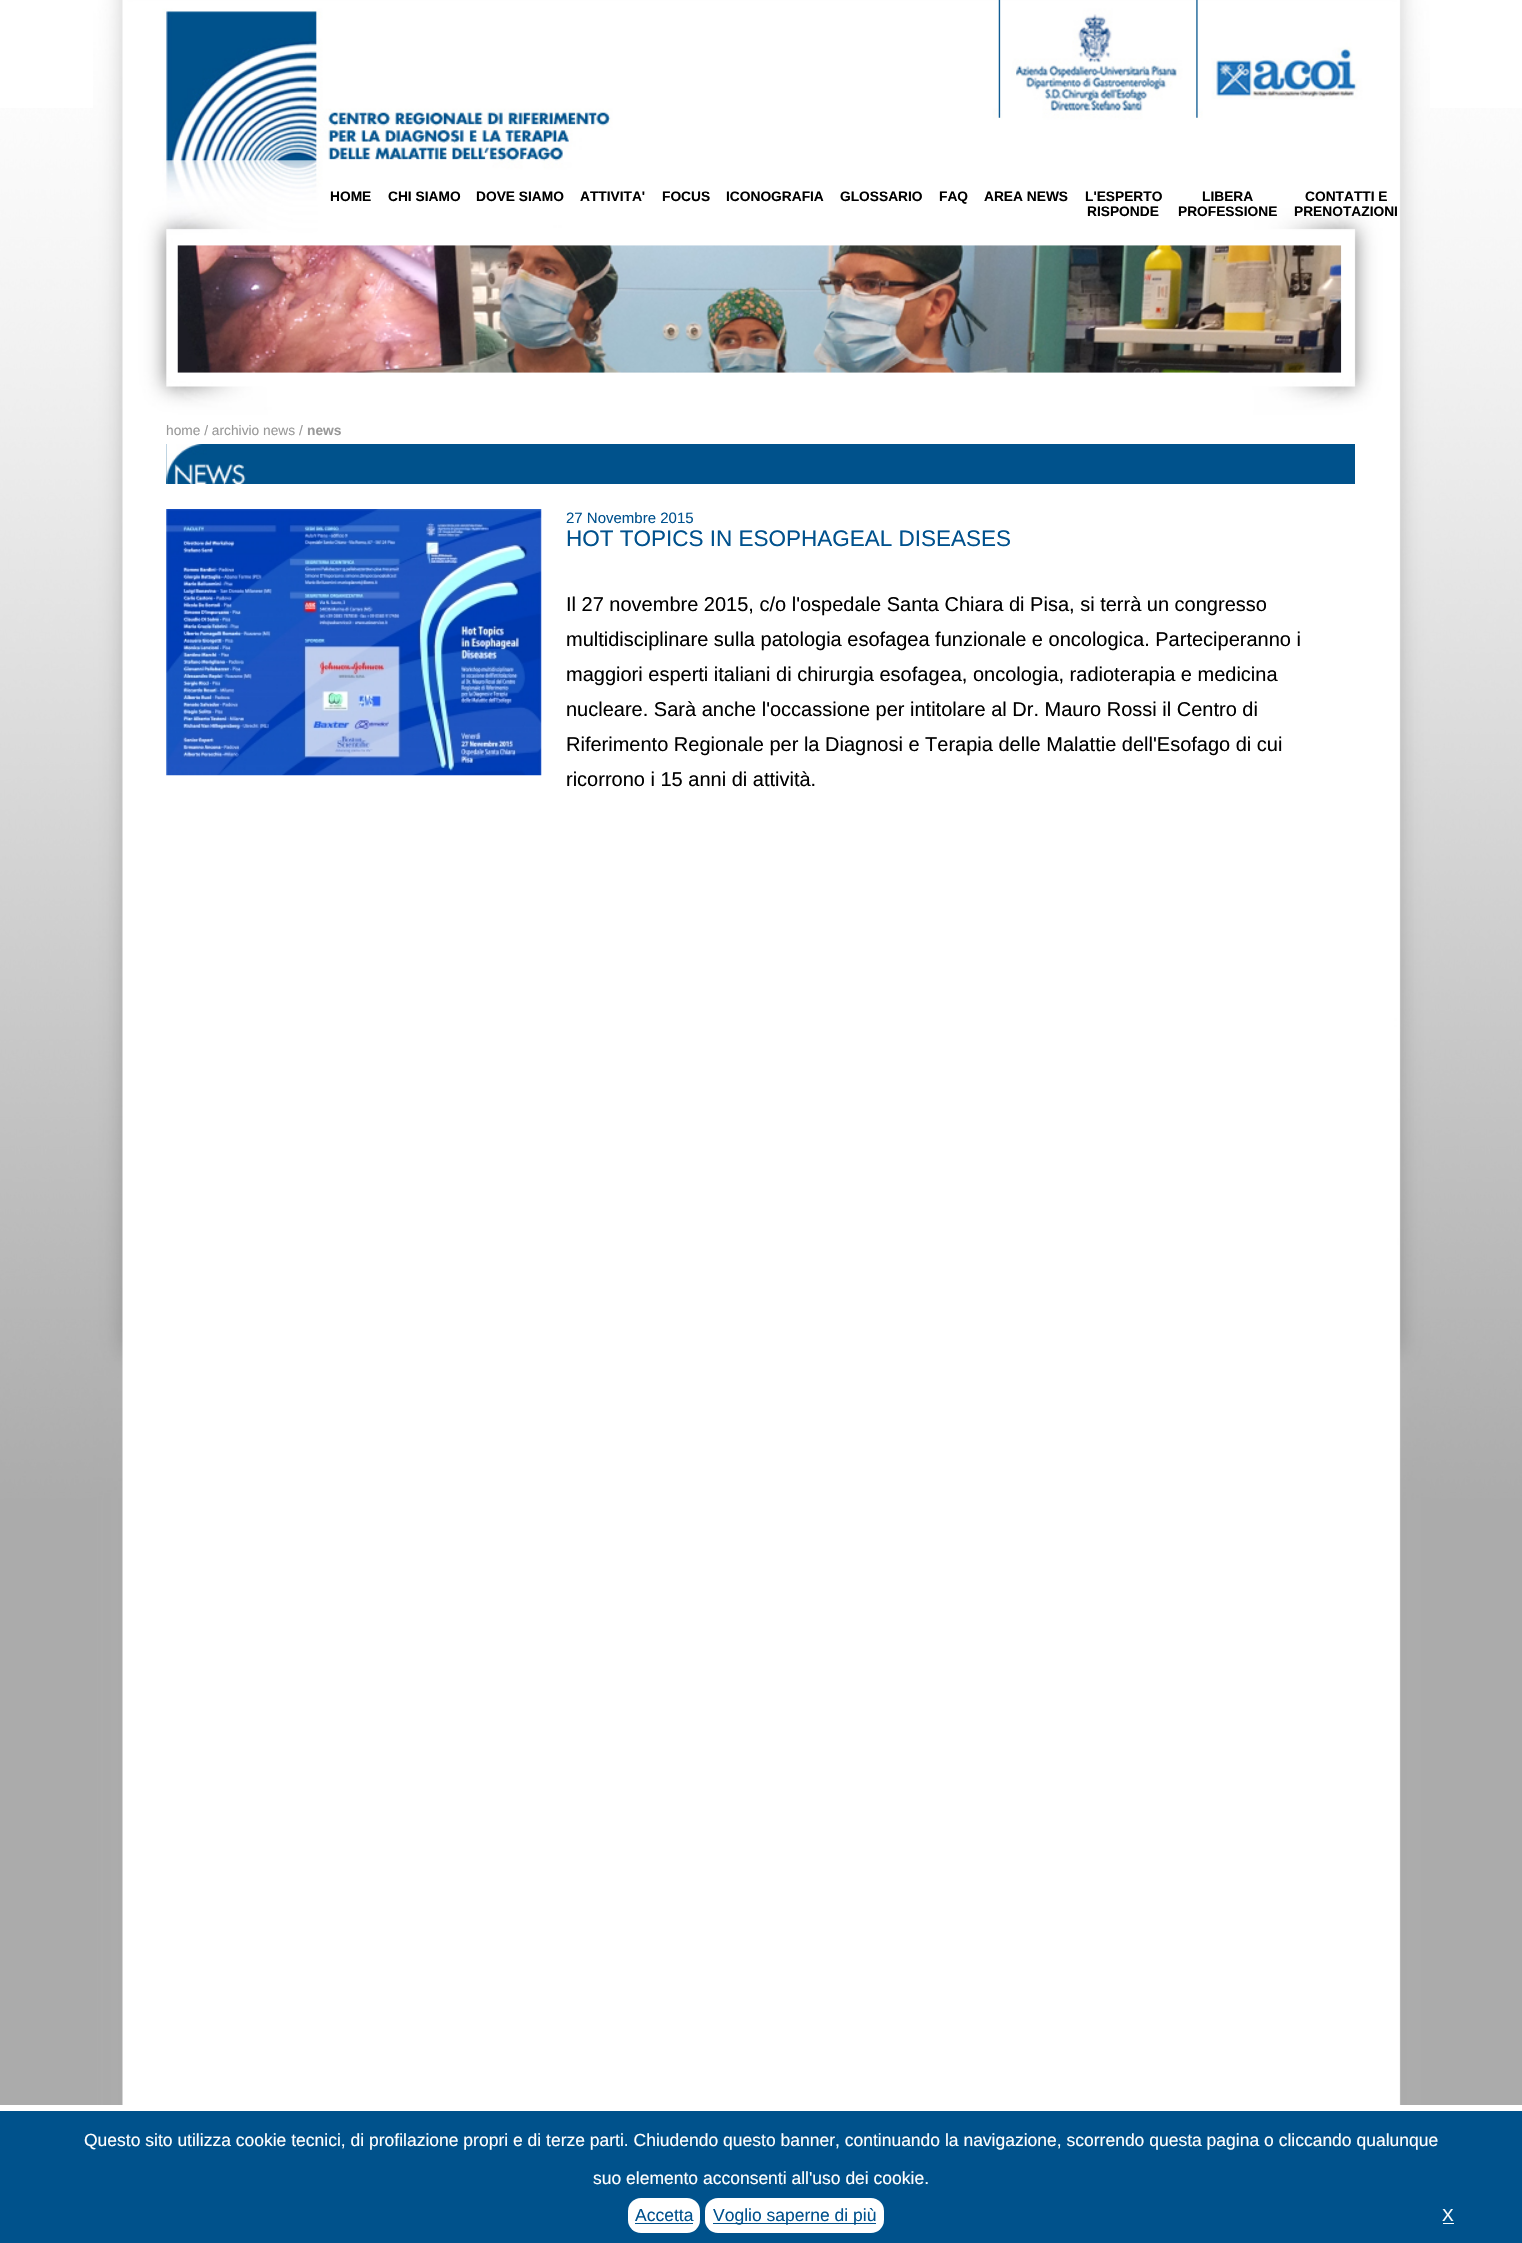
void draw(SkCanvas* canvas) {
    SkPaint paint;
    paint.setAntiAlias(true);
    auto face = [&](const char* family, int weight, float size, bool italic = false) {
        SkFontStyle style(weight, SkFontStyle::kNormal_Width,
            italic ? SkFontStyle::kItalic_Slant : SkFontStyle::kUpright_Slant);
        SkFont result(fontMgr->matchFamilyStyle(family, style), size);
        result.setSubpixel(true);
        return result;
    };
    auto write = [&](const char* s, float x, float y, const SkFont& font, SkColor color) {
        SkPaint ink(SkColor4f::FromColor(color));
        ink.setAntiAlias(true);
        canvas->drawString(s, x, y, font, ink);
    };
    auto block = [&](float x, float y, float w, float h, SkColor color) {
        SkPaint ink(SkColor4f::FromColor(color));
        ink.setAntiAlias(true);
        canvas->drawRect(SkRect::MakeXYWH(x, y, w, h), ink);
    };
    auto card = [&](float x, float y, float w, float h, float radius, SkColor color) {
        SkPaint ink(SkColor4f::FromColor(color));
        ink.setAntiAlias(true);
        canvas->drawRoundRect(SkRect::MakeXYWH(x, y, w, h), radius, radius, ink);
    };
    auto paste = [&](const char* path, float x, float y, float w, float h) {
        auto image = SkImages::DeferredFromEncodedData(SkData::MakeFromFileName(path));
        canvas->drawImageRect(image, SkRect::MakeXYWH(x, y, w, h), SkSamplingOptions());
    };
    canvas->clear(SK_ColorWHITE);
    paste("pic1.png", 0, 108, 1522, 1997);
    paste("pic2.png", 93, 0, 1337, 2105);
    auto kFont1 = face("Liberation Sans", 700, 13.75f);
    write("HOME", 330, 201, kFont1, SK_ColorBLACK);
    write("CHI SIAMO", 388, 201, kFont1, SK_ColorBLACK);
    write("DOVE SIAMO", 476, 201, kFont1, SK_ColorBLACK);
    write("ATTIVITA'", 580, 201, kFont1, SK_ColorBLACK);
    write("FOCUS", 662, 201, kFont1, SK_ColorBLACK);
    write("ICONOGRAFIA", 726, 201, kFont1, SK_ColorBLACK);
    write("GLOSSARIO", 840, 201, kFont1, SK_ColorBLACK);
    write("FAQ", 939, 201, kFont1, SK_ColorBLACK);
    write("AREA NEWS", 984, 201, kFont1, SK_ColorBLACK);
    write("L'ESPERTO", 1085, 201, kFont1, SK_ColorBLACK);
    write("RISPONDE", 1087, 216, kFont1, SK_ColorBLACK);
    write("LIBERA", 1202, 201, kFont1, SK_ColorBLACK);
    write("PROFESSIONE", 1178, 216, kFont1, SK_ColorBLACK);
    write("CONTATTI E", 1305, 201, kFont1, SK_ColorBLACK);
    write("PRENOTAZIONI", 1294, 216, kFont1, SK_ColorBLACK);
    paste("pic3.png", 177, 245, 1165, 128);
    auto kFont2 = face("Liberation Sans", 400, 13.75f);
    write("home / archivio news /", 166, 435, kFont2, SkColorSetRGB(153, 153, 153));
    write("news", 307, 435, kFont1, SkColorSetRGB(153, 153, 153));
    block(166, 444, 1189, 40, SkColorSetRGB(0, 82, 140));
    paste("pic4.png", 166, 444, 80, 40);
    paste("pic5.png", 166, 509, 376, 267);
    auto kFont3 = face("Liberation Sans", 400, 15);
    write("27 Novembre 2015", 566, 523, kFont3, SkColorSetRGB(0, 81, 141));
    auto kFont4 = face("Liberation Sans", 400, 22.5f);
    write("HOT TOPICS IN ESOPHAGEAL DISEASES", 566, 546, kFont4, SkColorSetRGB(0, 81, 141));
    auto kFont5 = face("Liberation Sans", 400, 20);
    write("Il 27 novembre 2015, c/o l'ospedale Santa Chiara di Pisa, si terrà un congresso", 566, 611, kFont5, SK_ColorBLACK);
    write("multidisciplinare sulla patologia esofagea funzionale e oncologica. Parteciperanno i", 566, 646, kFont5, SK_ColorBLACK);
    write("maggiori esperti italiani di chirurgia esofagea, oncologia, radioterapia e medicina", 566, 681, kFont5, SK_ColorBLACK);
    write("nucleare. Sarà anche l'occassione per intitolare al Dr. Mauro Rossi il Centro di", 566, 716, kFont5, SK_ColorBLACK);
    write("Riferimento Regionale per la Diagnosi e Terapia delle Malattie dell'Esofago di cui", 566, 751, kFont5, SK_ColorBLACK);
    write("ricorrono i 15 anni di attività.", 566, 786, kFont5, SK_ColorBLACK);
    block(0, 2111, 1522, 132, SkColorSetRGB(0, 82, 140));
    auto kFont6 = face("Liberation Sans", 400, 17.5f);
    write("Questo sito utilizza cookie tecnici, di profilazione propri e di terze parti. Chiudendo questo banner, continuando la navigazione, scorrendo questa pagina o cliccando qualunque", 84, 2146, kFont6, SK_ColorWHITE);
    write("suo elemento acconsenti all'uso dei cookie.", 593, 2184, kFont6, SK_ColorWHITE);
    card(628, 2198, 72, 35, 13, SK_ColorWHITE);
    write("Accetta", 635, 2221, kFont6, SkColorSetRGB(0, 81, 141));
    block(635, 2223, 58, 1, SkColorSetRGB(0, 82, 140));
    card(705, 2198, 179, 35, 13, SK_ColorWHITE);
    block(713, 2223, 163, 1, SkColorSetRGB(0, 82, 140));
    write("Voglio saperne di più", 713, 2221, kFont6, SkColorSetRGB(0, 81, 141));
    write("X", 1442, 2221, kFont6, SK_ColorWHITE);
    block(1443, 2223, 11, 1, SK_ColorWHITE);
}
